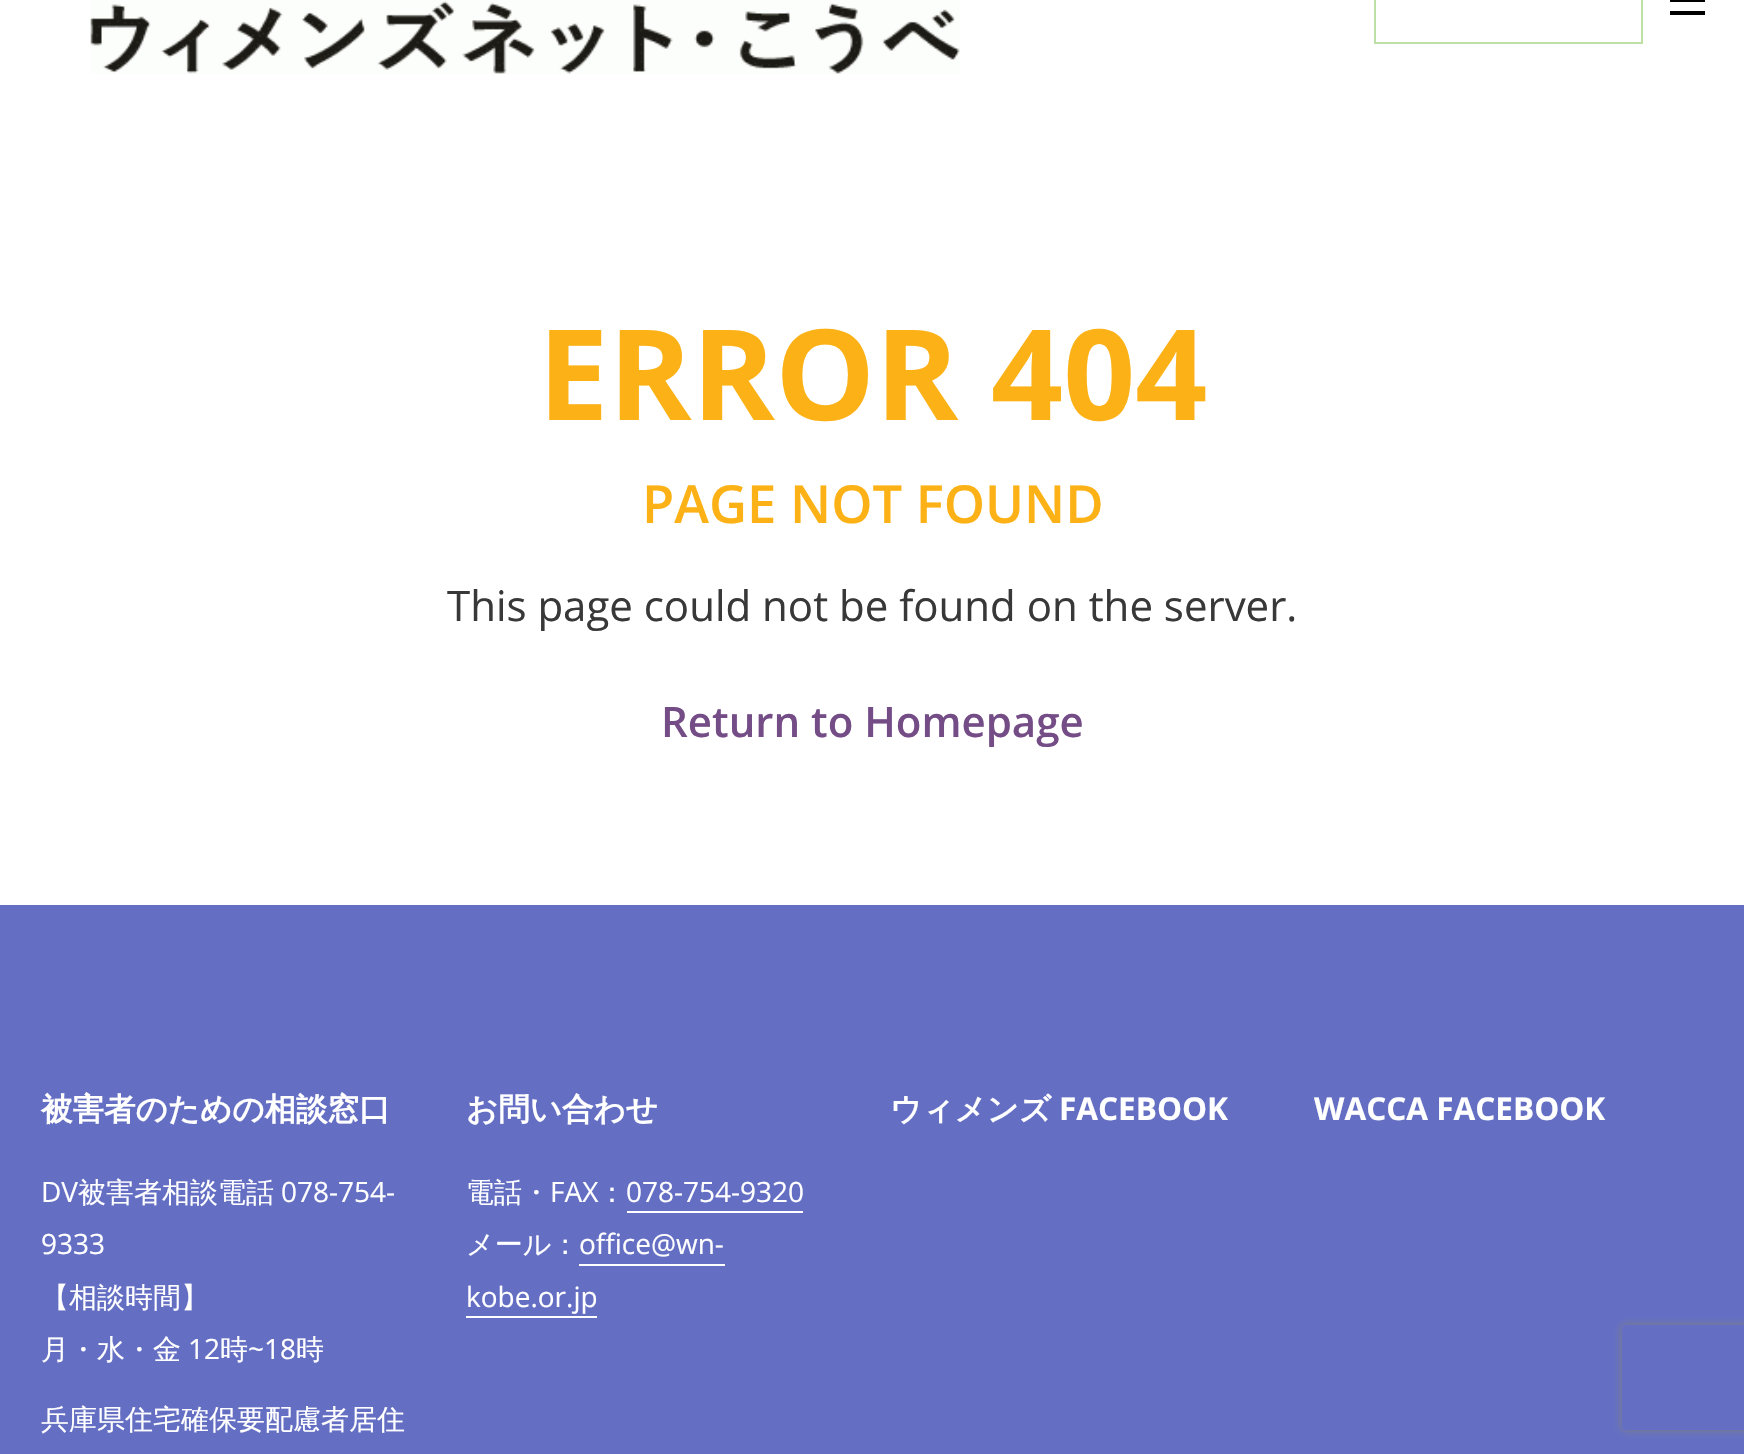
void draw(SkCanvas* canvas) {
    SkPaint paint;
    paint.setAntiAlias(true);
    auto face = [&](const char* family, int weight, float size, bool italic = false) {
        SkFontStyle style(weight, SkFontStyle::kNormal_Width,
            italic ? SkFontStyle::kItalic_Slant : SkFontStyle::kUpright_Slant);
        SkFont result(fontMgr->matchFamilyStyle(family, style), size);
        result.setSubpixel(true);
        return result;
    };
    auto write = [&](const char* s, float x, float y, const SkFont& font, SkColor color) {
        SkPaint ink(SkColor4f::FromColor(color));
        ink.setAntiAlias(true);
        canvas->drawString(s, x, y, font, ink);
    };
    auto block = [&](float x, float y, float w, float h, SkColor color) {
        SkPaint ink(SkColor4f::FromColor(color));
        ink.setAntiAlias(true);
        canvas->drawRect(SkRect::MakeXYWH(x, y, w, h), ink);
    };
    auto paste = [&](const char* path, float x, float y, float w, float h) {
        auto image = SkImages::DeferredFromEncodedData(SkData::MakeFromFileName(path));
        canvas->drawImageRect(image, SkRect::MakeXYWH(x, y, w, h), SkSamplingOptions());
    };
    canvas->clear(SK_ColorWHITE);
    paste("pic1.png", 90, 0, 870, 74);
    paint.setStyle(SkPaint::kStroke_Style);
    paint.setStrokeWidth(2);
    paint.setColor(SkColorSetRGB(189, 224, 167));
    canvas->drawRect(SkRect::MakeXYWH(1375, -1, 267, 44), paint);
    block(1670, 0, 35, 2, SK_ColorBLACK);
    block(1670, 11, 35, 4, SK_ColorBLACK);
    auto kFont1 = face("Open Sans", 700, 126);
    write("ERROR 404", 538, 420, kFont1, SkColorSetRGB(252, 178, 22));
    auto kFont2 = face("Open Sans", 600, 52.5f);
    write("PAGE NOT FOUND", 642, 523, kFont2, SkColorSetRGB(252, 178, 22));
    auto kFont3 = face("Open Sans", 400, 42);
    write("This page could not be found on the server.", 447, 621, kFont3, SkColorSetRGB(56, 56, 56));
    auto kFont4 = face("Open Sans", 600, 42);
    write("Return to Homepage", 661, 737, kFont4, SkColorSetRGB(116, 76, 134));
    block(0, 905, 1744, 549, SkColorSetRGB(100, 111, 196));
    auto kFont5 = face("WenQuanYi Zen Hei", 700, 31.5f);
    write("被害者のための相談窓口", 41, 1120, kFont5, SK_ColorWHITE);
    auto kFont6 = face("Open Sans", 400, 28);
    write("DV", 41, 1202, kFont6, SK_ColorWHITE);
    auto kFont7 = face("WenQuanYi Zen Hei", 500, 28);
    write("被害者相談電話", 78, 1202, kFont7, SK_ColorWHITE);
    write("078-754-", 281, 1202, kFont6, SK_ColorWHITE);
    write("9333", 41, 1254, kFont6, SK_ColorWHITE);
    write("【相談時間】", 41, 1307, kFont7, SK_ColorWHITE);
    write("月・水・金", 41, 1359, kFont7, SK_ColorWHITE);
    write("12", 188, 1359, kFont6, SK_ColorWHITE);
    write("時", 220, 1359, kFont7, SK_ColorWHITE);
    write("~18", 248, 1359, kFont6, SK_ColorWHITE);
    write("時", 296, 1359, kFont7, SK_ColorWHITE);
    write("兵庫県住宅確保要配慮者居住", 41, 1429, kFont7, SK_ColorWHITE);
    write("お問い合わせ", 466, 1120, kFont5, SK_ColorWHITE);
    write("電話・", 466, 1202, kFont7, SK_ColorWHITE);
    write("FAX", 550, 1202, kFont6, SK_ColorWHITE);
    write("：", 598, 1202, kFont7, SK_ColorWHITE);
    write("078-754-9320", 626, 1202, kFont6, SK_ColorWHITE);
    block(627, 1211, 176, 2, SK_ColorWHITE);
    write("メール：", 466, 1254, kFont7, SK_ColorWHITE);
    write("office@wn-", 579, 1254, kFont6, SK_ColorWHITE);
    block(579, 1264, 146, 2, SK_ColorWHITE);
    write("kobe.or.jp", 466, 1307, kFont6, SK_ColorWHITE);
    block(466, 1316, 131, 2, SK_ColorWHITE);
    write("ウィメンズ", 890, 1120, kFont5, SK_ColorWHITE);
    auto kFont8 = face("Open Sans", 700, 31.5f);
    write("FACEBOOK", 1059, 1120, kFont8, SK_ColorWHITE);
    write("WACCA FACEBOOK", 1314, 1120, kFont8, SK_ColorWHITE);
    canvas->save();
    canvas->clipPath(SkPathBuilder(SkPathFillType::kEvenOdd).moveTo(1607, 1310).lineTo(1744, 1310).lineTo(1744, 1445).lineTo(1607, 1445).close().moveTo(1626, 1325).lineTo(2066, 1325).cubicTo(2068, 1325, 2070, 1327, 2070, 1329).lineTo(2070, 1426).cubicTo(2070, 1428, 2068, 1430, 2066, 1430).lineTo(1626, 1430).cubicTo(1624, 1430, 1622, 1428, 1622, 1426).lineTo(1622, 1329).cubicTo(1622, 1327, 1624, 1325, 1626, 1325).close().detach(), true);
    paint.setStyle(SkPaint::kFill_Style);
    paint.setColor(SkColorSetRGB(128, 128, 128));
    paint.setMaskFilter(SkMaskFilter::MakeBlur(kNormal_SkBlurStyle, 4.5f));
    canvas->drawRoundRect(SkRect::MakeXYWH(1622, 1325, 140, 105), 4, 4, paint);
    paint.setMaskFilter(nullptr);
    canvas->restore();
}
